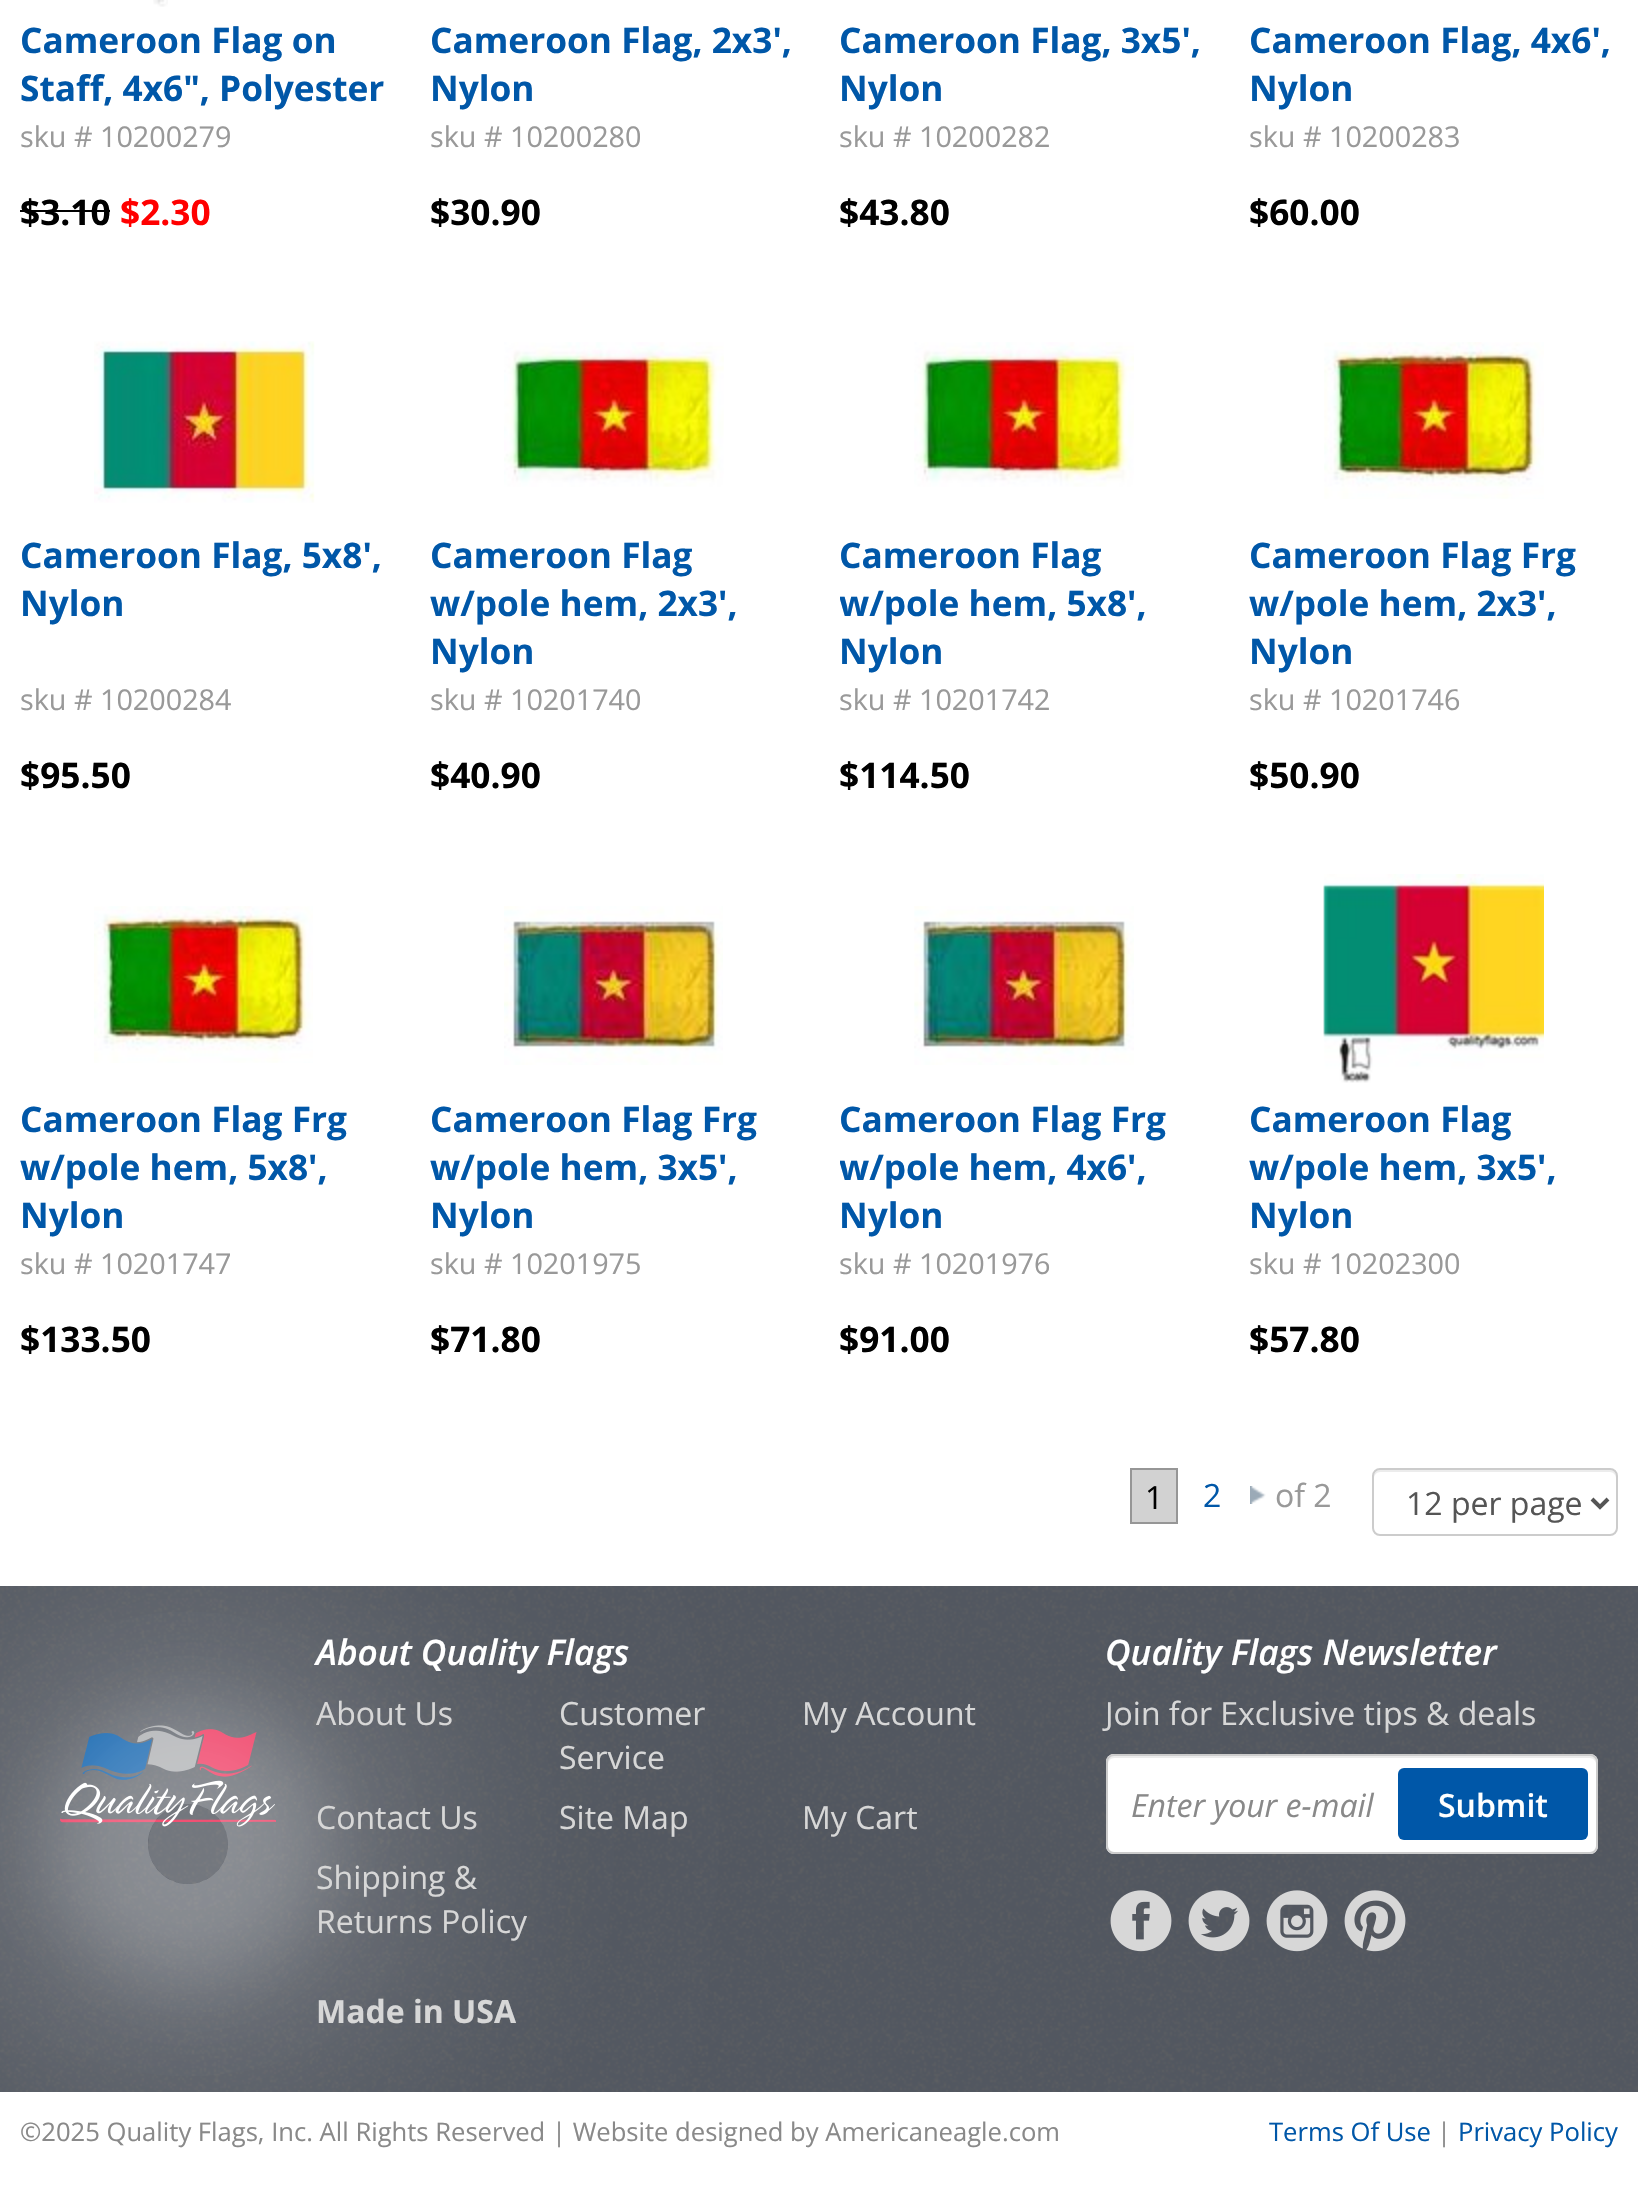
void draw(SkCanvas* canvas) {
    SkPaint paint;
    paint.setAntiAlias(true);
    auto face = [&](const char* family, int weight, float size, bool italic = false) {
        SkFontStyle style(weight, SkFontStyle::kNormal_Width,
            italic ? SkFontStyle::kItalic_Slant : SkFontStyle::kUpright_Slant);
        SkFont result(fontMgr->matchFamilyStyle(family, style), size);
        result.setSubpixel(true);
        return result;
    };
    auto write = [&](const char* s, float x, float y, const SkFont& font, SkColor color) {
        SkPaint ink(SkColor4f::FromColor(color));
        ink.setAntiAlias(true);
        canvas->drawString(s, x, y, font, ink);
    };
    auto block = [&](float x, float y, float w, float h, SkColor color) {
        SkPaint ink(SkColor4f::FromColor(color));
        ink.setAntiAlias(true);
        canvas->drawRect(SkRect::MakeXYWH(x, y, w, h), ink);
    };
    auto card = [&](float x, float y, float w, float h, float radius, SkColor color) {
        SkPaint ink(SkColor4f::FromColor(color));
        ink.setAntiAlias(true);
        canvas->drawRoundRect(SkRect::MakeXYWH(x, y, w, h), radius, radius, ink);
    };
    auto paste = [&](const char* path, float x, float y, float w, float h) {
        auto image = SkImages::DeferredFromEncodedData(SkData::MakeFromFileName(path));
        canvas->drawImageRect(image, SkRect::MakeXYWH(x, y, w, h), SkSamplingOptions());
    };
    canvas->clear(SK_ColorWHITE);
    paste("pic1.png", 153, 0, 15, 7);
    auto kFont1 = face("Open Sans", 700, 35.25f);
    write("Cameroon Flag on", 20, 53, kFont1, SkColorSetRGB(0, 87, 168));
    write("Staff, 4x6\", Polyester", 20, 101, kFont1, SkColorSetRGB(0, 87, 168));
    auto kFont2 = face("Open Sans", 400, 28.75f);
    write("sku # 10200279", 20, 147, kFont2, SkColorSetRGB(153, 153, 153));
    write("$3.10", 20, 225, kFont1, SK_ColorBLACK);
    block(20, 210, 90, 2, SK_ColorBLACK);
    write("$2.30", 120, 225, kFont1, SkColorSetRGB(255, 0, 0));
    write("Cameroon Flag, 2x3',", 430, 53, kFont1, SkColorSetRGB(0, 87, 168));
    write("Nylon", 430, 101, kFont1, SkColorSetRGB(0, 87, 168));
    write("sku # 10200280", 430, 147, kFont2, SkColorSetRGB(153, 153, 153));
    write("$30.90", 430, 225, kFont1, SK_ColorBLACK);
    write("Cameroon Flag, 3x5',", 839, 53, kFont1, SkColorSetRGB(0, 87, 168));
    write("Nylon", 839, 101, kFont1, SkColorSetRGB(0, 87, 168));
    write("sku # 10200282", 839, 147, kFont2, SkColorSetRGB(153, 153, 153));
    write("$43.80", 839, 225, kFont1, SK_ColorBLACK);
    write("Cameroon Flag, 4x6',", 1249, 53, kFont1, SkColorSetRGB(0, 87, 168));
    write("Nylon", 1249, 101, kFont1, SkColorSetRGB(0, 87, 168));
    write("sku # 10200283", 1249, 147, kFont2, SkColorSetRGB(153, 153, 153));
    write("$60.00", 1249, 225, kFont1, SK_ColorBLACK);
    paste("pic2.png", 94, 341, 221, 162);
    write("Cameroon Flag, 5x8',", 20, 568, kFont1, SkColorSetRGB(0, 87, 168));
    write("Nylon", 20, 616, kFont1, SkColorSetRGB(0, 87, 168));
    write("sku # 10200284", 20, 710, kFont2, SkColorSetRGB(153, 153, 153));
    write("$95.50", 20, 788, kFont1, SK_ColorBLACK);
    paste("pic3.png", 504, 342, 220, 145);
    write("Cameroon Flag", 430, 568, kFont1, SkColorSetRGB(0, 87, 168));
    write("w/pole hem, 2x3',", 430, 616, kFont1, SkColorSetRGB(0, 87, 168));
    write("Nylon", 430, 664, kFont1, SkColorSetRGB(0, 87, 168));
    write("sku # 10201740", 430, 710, kFont2, SkColorSetRGB(153, 153, 153));
    write("$40.90", 430, 788, kFont1, SK_ColorBLACK);
    paste("pic4.png", 914, 342, 220, 145);
    write("Cameroon Flag", 839, 568, kFont1, SkColorSetRGB(0, 87, 168));
    canvas->save();
    canvas->clipRect(SkRect::MakeXYWH(840, 310, 368, 524));
    write("w/pole hem, 5x8',", 839, 616, kFont1, SkColorSetRGB(0, 87, 168));
    canvas->restore();
    write("Nylon", 839, 664, kFont1, SkColorSetRGB(0, 87, 168));
    write("sku # 10201742", 839, 710, kFont2, SkColorSetRGB(153, 153, 153));
    write("$114.50", 839, 788, kFont1, SK_ColorBLACK);
    paste("pic5.png", 1324, 342, 220, 157);
    write("Cameroon Flag Frg", 1249, 568, kFont1, SkColorSetRGB(0, 87, 168));
    write("w/pole hem, 2x3',", 1249, 616, kFont1, SkColorSetRGB(0, 87, 168));
    write("Nylon", 1249, 664, kFont1, SkColorSetRGB(0, 87, 168));
    write("sku # 10201746", 1249, 710, kFont2, SkColorSetRGB(153, 153, 153));
    write("$50.90", 1249, 788, kFont1, SK_ColorBLACK);
    paste("pic6.png", 94, 906, 219, 157);
    write("Cameroon Flag Frg", 20, 1132, kFont1, SkColorSetRGB(0, 87, 168));
    write("w/pole hem, 5x8',", 20, 1180, kFont1, SkColorSetRGB(0, 87, 168));
    write("Nylon", 20, 1228, kFont1, SkColorSetRGB(0, 87, 168));
    write("sku # 10201747", 20, 1274, kFont2, SkColorSetRGB(153, 153, 153));
    write("$133.50", 20, 1352, kFont1, SK_ColorBLACK);
    paste("pic7.png", 504, 906, 219, 159);
    write("Cameroon Flag Frg", 430, 1132, kFont1, SkColorSetRGB(0, 87, 168));
    write("w/pole hem, 3x5',", 430, 1180, kFont1, SkColorSetRGB(0, 87, 168));
    write("Nylon", 430, 1228, kFont1, SkColorSetRGB(0, 87, 168));
    write("sku # 10201975", 430, 1274, kFont2, SkColorSetRGB(153, 153, 153));
    write("$71.80", 430, 1352, kFont1, SK_ColorBLACK);
    paste("pic8.png", 914, 906, 220, 159);
    write("Cameroon Flag Frg", 839, 1132, kFont1, SkColorSetRGB(0, 87, 168));
    canvas->save();
    canvas->clipRect(SkRect::MakeXYWH(840, 874, 368, 522));
    write("w/pole hem, 4x6',", 839, 1180, kFont1, SkColorSetRGB(0, 87, 168));
    canvas->restore();
    write("Nylon", 839, 1228, kFont1, SkColorSetRGB(0, 87, 168));
    write("sku # 10201976", 839, 1274, kFont2, SkColorSetRGB(153, 153, 153));
    write("$91.00", 839, 1352, kFont1, SK_ColorBLACK);
    paste("pic9.png", 1323, 874, 221, 209);
    write("Cameroon Flag", 1249, 1132, kFont1, SkColorSetRGB(0, 87, 168));
    write("w/pole hem, 3x5',", 1249, 1180, kFont1, SkColorSetRGB(0, 87, 168));
    write("Nylon", 1249, 1228, kFont1, SkColorSetRGB(0, 87, 168));
    write("sku # 10202300", 1249, 1274, kFont2, SkColorSetRGB(153, 153, 153));
    write("$57.80", 1249, 1352, kFont1, SK_ColorBLACK);
    paint.setColor(SkColorSetRGB(210, 210, 210));
    canvas->drawRect(SkRect::MakeXYWH(1131, 1469, 46, 54), paint);
    paint.setStyle(SkPaint::kStroke_Style);
    paint.setStrokeWidth(2);
    paint.setColor(SkColorSetRGB(150, 150, 150));
    canvas->drawRect(SkRect::MakeXYWH(1131, 1469, 46, 54), paint);
    auto kFont3 = face("Open Sans", 400, 32);
    write("1", 1145, 1509, kFont3, SK_ColorBLACK);
    write("2", 1203, 1507, kFont3, SkColorSetRGB(0, 87, 168));
    paste("pic10.png", 1250, 1486, 16, 18);
    write("of 2", 1275, 1507, kFont3, SkColorSetRGB(153, 153, 153));
    paint.setStyle(SkPaint::kFill_Style);
    paint.setColor(SkColorSetRGB(236, 236, 236));
    canvas->drawPath(SkPathBuilder().moveTo(1380, 1472).lineTo(1610, 1472).cubicTo(1613, 1472, 1616, 1475, 1616, 1478).lineTo(1616, 1476).cubicTo(1616, 1473, 1613, 1470, 1610, 1470).lineTo(1380, 1470).cubicTo(1377, 1470, 1374, 1473, 1374, 1476).lineTo(1374, 1478).cubicTo(1374, 1475, 1377, 1472, 1380, 1472).close().detach(), paint);
    paint.setStyle(SkPaint::kStroke_Style);
    paint.setColor(SkColorSetRGB(204, 204, 204));
    canvas->drawRoundRect(SkRect::MakeXYWH(1373, 1469, 244, 66), 7, 7, paint);
    paint.setStrokeWidth(4);
    paint.setColor(SkColorSetRGB(85, 85, 85));
    canvas->drawPath(SkPathBuilder().moveTo(1592, 1499).lineTo(1600, 1507).lineTo(1608, 1499).detach(), paint);
    write("12 per page", 1406, 1515, kFont3, SkColorSetRGB(85, 85, 85));
    paste("pic11.png", 0, 1586, 1638, 506);
    paste("pic12.png", 60, 1725, 216, 102);
    canvas->save();
    canvas->clipPath(SkPathBuilder(SkPathFillType::kEvenOdd).moveTo(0, 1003).lineTo(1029, 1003).lineTo(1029, 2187).lineTo(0, 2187).close().moveTo(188, 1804).cubicTo(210, 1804, 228, 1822, 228, 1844).cubicTo(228, 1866, 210, 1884, 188, 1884).cubicTo(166, 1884, 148, 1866, 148, 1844).cubicTo(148, 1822, 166, 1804, 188, 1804).close().detach(), true);
    paint.setStyle(SkPaint::kFill_Style);
    paint.setColor(SkColorSetARGB(48, 255, 255, 255));
    paint.setMaskFilter(SkMaskFilter::MakeBlur(kNormal_SkBlurStyle, 200));
    canvas->drawRoundRect(SkRect::MakeXYWH(-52, 1604, 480, 480), 240, 240, paint);
    paint.setMaskFilter(nullptr);
    canvas->restore();
    canvas->save();
    canvas->clipPath(SkPathBuilder(SkPathFillType::kEvenOdd).moveTo(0, 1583).lineTo(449, 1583).lineTo(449, 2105).lineTo(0, 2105).close().moveTo(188, 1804).cubicTo(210, 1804, 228, 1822, 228, 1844).cubicTo(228, 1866, 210, 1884, 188, 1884).cubicTo(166, 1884, 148, 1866, 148, 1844).cubicTo(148, 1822, 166, 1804, 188, 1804).close().detach(), true);
    paint.setMaskFilter(SkMaskFilter::MakeBlur(kNormal_SkBlurStyle, 40));
    canvas->drawRoundRect(SkRect::MakeXYWH(48, 1704, 280, 280), 140, 140, paint);
    paint.setMaskFilter(nullptr);
    canvas->restore();
    canvas->drawCircle(188, 1844, 40, paint);
    auto kFont4 = face("Open Sans", 600, 35.25f, true);
    write("About Quality Flags", 316, 1665, kFont4, SK_ColorWHITE);
    write("About Us", 316, 1725, kFont3, SkColorSetRGB(215, 215, 215));
    write("Customer", 559, 1725, kFont3, SkColorSetRGB(215, 215, 215));
    write("Service", 559, 1769, kFont3, SkColorSetRGB(215, 215, 215));
    write("My Account", 802, 1725, kFont3, SkColorSetRGB(215, 215, 215));
    write("Contact Us", 316, 1829, kFont3, SkColorSetRGB(215, 215, 215));
    write("Site Map", 559, 1829, kFont3, SkColorSetRGB(215, 215, 215));
    write("My Cart", 802, 1829, kFont3, SkColorSetRGB(215, 215, 215));
    write("Shipping &", 316, 1889, kFont3, SkColorSetRGB(215, 215, 215));
    write("Returns Policy", 316, 1933, kFont3, SkColorSetRGB(215, 215, 215));
    auto kFont5 = face("Open Sans", 700, 32);
    write("Made in USA", 316, 2023, kFont5, SkColorSetRGB(215, 215, 215));
    write("Quality Flags Newsletter", 1105, 1665, kFont4, SK_ColorWHITE);
    write("Join for Exclusive tips & deals", 1105, 1725, kFont3, SkColorSetRGB(215, 215, 215));
    card(1106, 1754, 492, 100, 8, SK_ColorWHITE);
    paint.setColor(SkColorSetRGB(236, 236, 236));
    canvas->drawPath(SkPathBuilder().moveTo(1114, 1758).lineTo(1590, 1758).cubicTo(1593, 1758, 1596, 1761, 1596, 1764).cubicTo(1596, 1760, 1595, 1756, 1590, 1756).lineTo(1114, 1756).cubicTo(1109, 1756, 1108, 1760, 1108, 1764).cubicTo(1108, 1761, 1111, 1758, 1114, 1758).close().detach(), paint);
    paint.setStyle(SkPaint::kStroke_Style);
    paint.setStrokeWidth(2);
    paint.setColor(SkColorSetRGB(204, 204, 204));
    canvas->drawRoundRect(SkRect::MakeXYWH(1107, 1755, 490, 98), 7, 7, paint);
    auto kFont6 = face("Open Sans", 400, 32, true);
    write("Enter your e-mail", 1131, 1817, kFont6, SkColorSetRGB(137, 137, 137));
    card(1398, 1768, 190, 72, 6, SkColorSetRGB(0, 87, 168));
    auto kFont7 = face("Open Sans", 600, 32);
    write("Submit", 1438, 1817, kFont7, SK_ColorWHITE);
    paste("pic13.png", 1110, 1890, 62, 62);
    paste("pic14.png", 1188, 1890, 62, 62);
    paste("pic15.png", 1266, 1890, 62, 62);
    paste("pic16.png", 1344, 1890, 62, 62);
    auto kFont8 = face("Open Sans", 400, 25.6f);
    write("©2025 Quality Flags, Inc. All Rights Reserved | Website designed by Americaneagle.com", 20, 2141, kFont8, SkColorSetRGB(137, 137, 137));
    write("Terms Of Use", 1269, 2141, kFont8, SkColorSetRGB(0, 87, 168));
    write("|", 1437, 2141, kFont8, SkColorSetRGB(137, 137, 137));
    write("Privacy Policy", 1458, 2141, kFont8, SkColorSetRGB(0, 87, 168));
}
